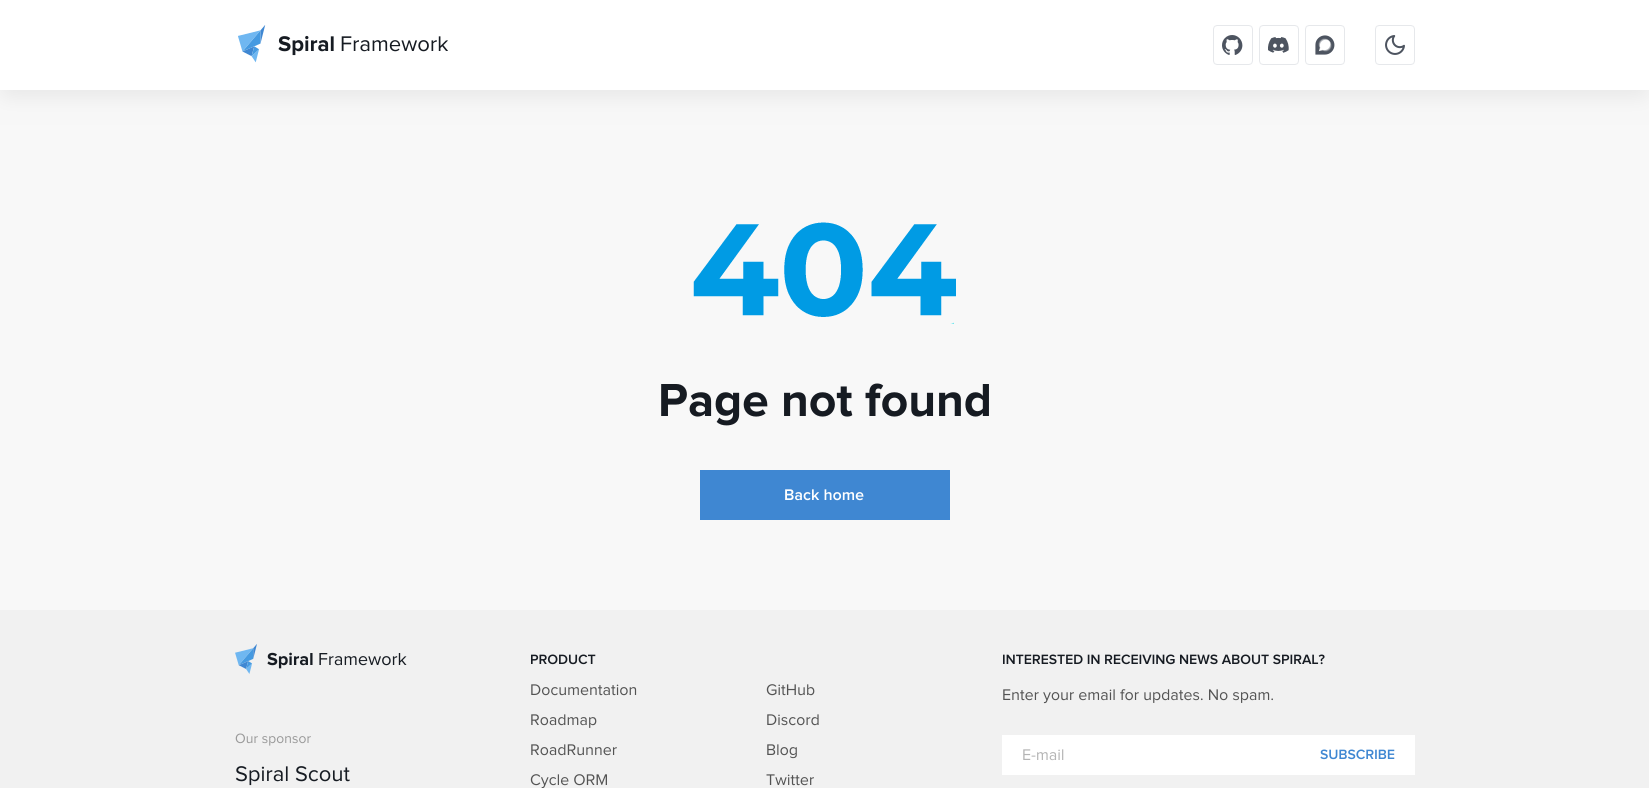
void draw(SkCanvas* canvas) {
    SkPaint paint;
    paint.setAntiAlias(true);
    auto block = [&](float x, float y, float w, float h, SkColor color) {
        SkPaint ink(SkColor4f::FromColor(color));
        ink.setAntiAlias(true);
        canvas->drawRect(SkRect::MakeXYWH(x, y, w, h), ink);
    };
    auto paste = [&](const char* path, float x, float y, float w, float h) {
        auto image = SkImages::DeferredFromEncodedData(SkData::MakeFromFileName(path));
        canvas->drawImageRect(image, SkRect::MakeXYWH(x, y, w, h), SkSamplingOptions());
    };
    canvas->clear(SkColorSetRGB(248, 248, 248));
    paint.setColor(SkColorSetARGB(15, 0, 0, 0));
    paint.setMaskFilter(SkMaskFilter::MakeBlur(kNormal_SkBlurStyle, 9));
    canvas->drawRect(SkRect::MakeXYWH(0, 8, 1649, 90), paint);
    paint.setMaskFilter(nullptr);
    block(0, 0, 1649, 90, SK_ColorWHITE);
    paste("pic1.png", 238, 25, 28, 38);
    paste("pic2.png", 278, 35, 56, 21);
    paste("pic3.png", 341, 36, 107, 16);
    paint.setStyle(SkPaint::kStroke_Style);
    paint.setStrokeWidth(1);
    paint.setColor(SkColorSetRGB(230, 232, 235));
    canvas->drawRoundRect(SkRect::MakeXYWH(1213.5f, 25.5f, 39, 39), 3.5f, 3.5f, paint);
    paste("pic4.png", 1222, 35, 21, 20);
    canvas->drawRoundRect(SkRect::MakeXYWH(1259.5f, 25.5f, 39, 39), 3.5f, 3.5f, paint);
    paste("pic5.png", 1268, 37, 21, 16);
    canvas->drawRoundRect(SkRect::MakeXYWH(1305.5f, 25.5f, 39, 39), 3.5f, 3.5f, paint);
    paste("pic6.png", 1315, 35, 20, 20);
    canvas->drawRoundRect(SkRect::MakeXYWH(1375.5f, 25.5f, 39, 39), 3.5f, 3.5f, paint);
    paste("pic7.png", 1385, 35, 20, 20);
    paste("pic8.png", 693, 222, 263, 102);
    paste("pic9.png", 661, 383, 328, 43);
    block(700, 470, 250, 50, SkColorSetRGB(63, 135, 210));
    paste("pic10.png", 785, 489, 79, 12);
    block(0, 610, 1649, 178, SkColorSetRGB(241, 241, 241));
    paste("pic11.png", 235, 644, 22, 30);
    paste("pic12.png", 267, 652, 46, 17);
    paste("pic13.png", 319, 653, 88, 13);
    paste("pic14.png", 235, 733, 76, 13);
    paste("pic15.png", 235, 766, 115, 20);
    paste("pic16.png", 531, 654, 65, 11);
    paste("pic17.png", 531, 684, 106, 12);
    paste("pic18.png", 531, 714, 66, 14);
    paste("pic19.png", 531, 744, 86, 12);
    paste("pic20.png", 530, 774, 77, 14);
    paste("pic21.png", 766, 684, 49, 12);
    paste("pic22.png", 767, 714, 52, 12);
    paste("pic23.png", 767, 744, 30, 15);
    paste("pic24.png", 766, 774, 48, 12);
    paste("pic25.png", 1003, 654, 322, 11);
    paste("pic26.png", 1003, 689, 270, 15);
    block(1002, 735, 413, 40, SK_ColorWHITE);
    paste("pic27.png", 1023, 749, 41, 12);
    paste("pic28.png", 1320, 749, 75, 11);
}
